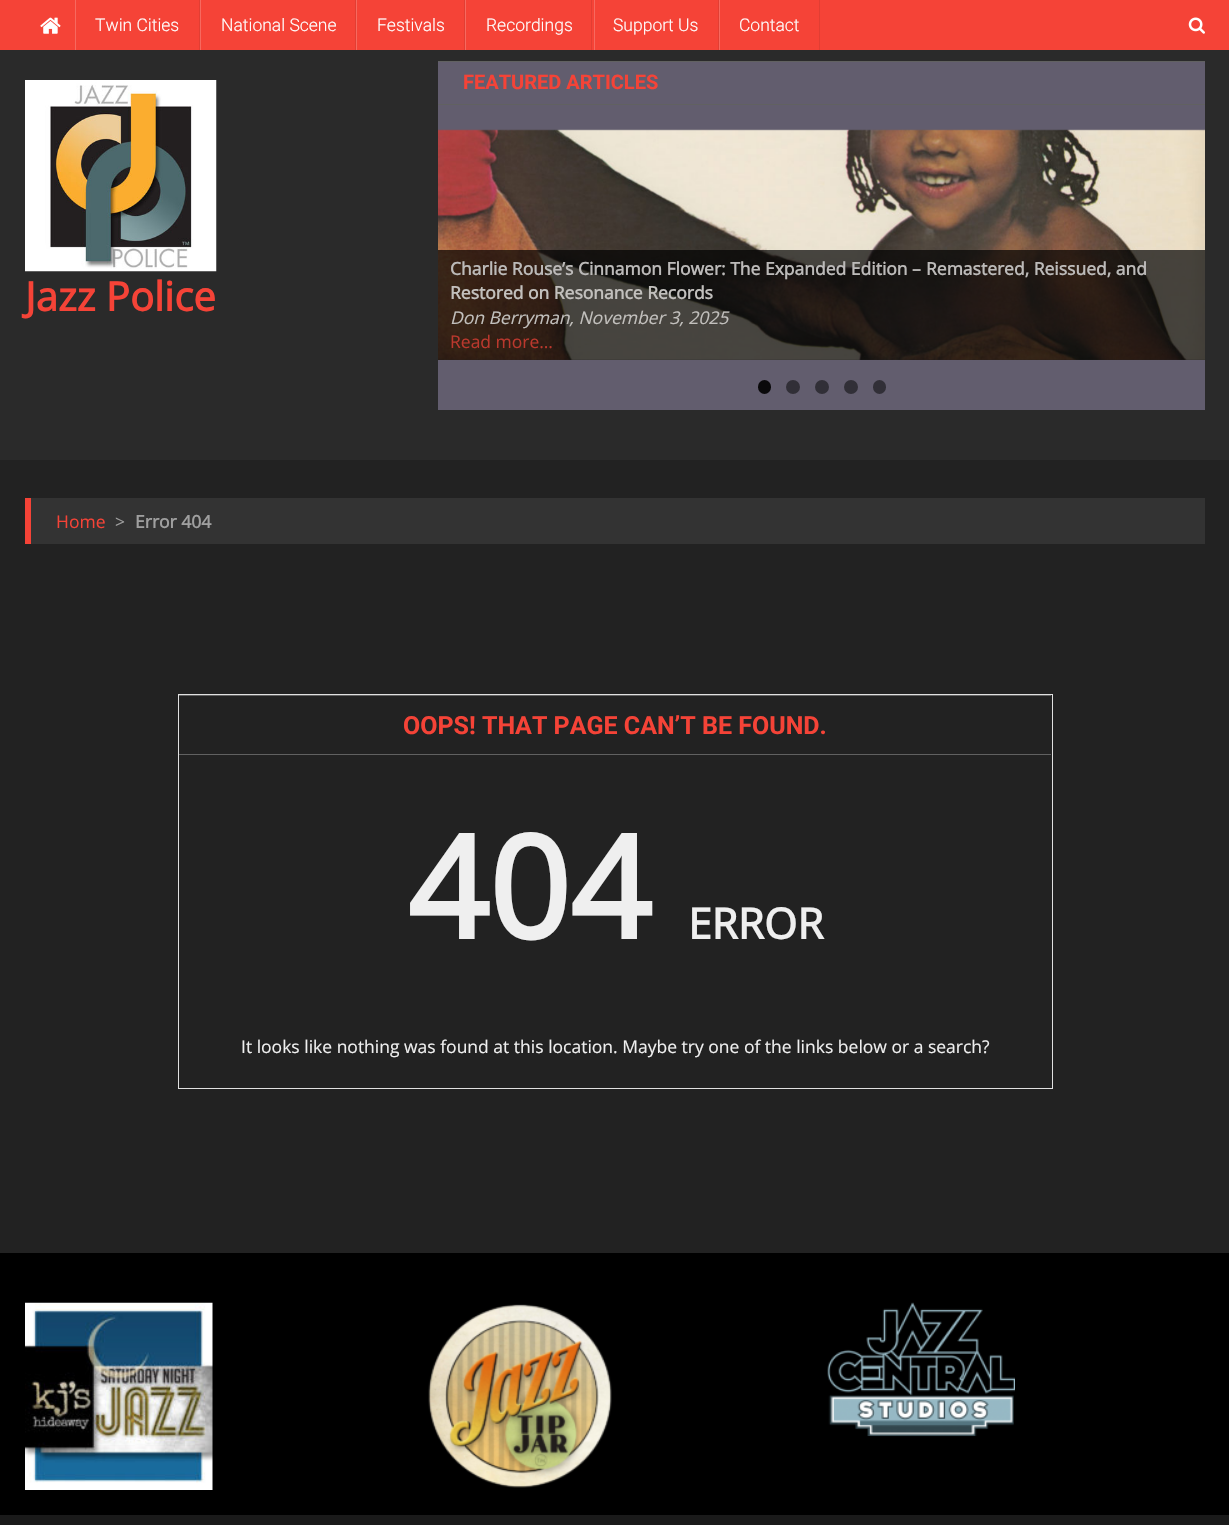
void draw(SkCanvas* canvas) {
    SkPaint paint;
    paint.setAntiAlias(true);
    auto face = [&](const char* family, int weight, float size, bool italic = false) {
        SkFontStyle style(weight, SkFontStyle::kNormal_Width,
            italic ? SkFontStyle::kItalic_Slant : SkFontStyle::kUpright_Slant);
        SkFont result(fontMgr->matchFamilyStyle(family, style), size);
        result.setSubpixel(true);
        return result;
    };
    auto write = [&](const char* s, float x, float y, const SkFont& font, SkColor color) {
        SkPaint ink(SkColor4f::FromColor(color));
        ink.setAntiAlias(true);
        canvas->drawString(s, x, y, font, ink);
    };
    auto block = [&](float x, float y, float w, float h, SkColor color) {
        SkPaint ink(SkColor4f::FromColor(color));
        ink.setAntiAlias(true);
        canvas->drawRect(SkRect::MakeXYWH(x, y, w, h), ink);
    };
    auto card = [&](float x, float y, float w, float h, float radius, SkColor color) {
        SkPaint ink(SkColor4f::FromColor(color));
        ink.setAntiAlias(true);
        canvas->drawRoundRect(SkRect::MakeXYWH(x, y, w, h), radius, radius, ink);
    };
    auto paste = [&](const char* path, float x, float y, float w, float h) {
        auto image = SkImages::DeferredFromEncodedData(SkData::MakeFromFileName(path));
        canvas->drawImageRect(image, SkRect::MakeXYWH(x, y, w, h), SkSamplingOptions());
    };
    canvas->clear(SkColorSetRGB(34, 34, 34));
    block(0, 0, 1229, 50, SkColorSetRGB(245, 67, 55));
    paste("pic1.png", 40, 17, 21, 17);
    block(199, 0, 1, 50, SkColorSetRGB(225, 62, 51));
    block(75, 0, 1, 50, SkColorSetRGB(247, 105, 95));
    auto kFont1 = face("Roboto", 300, 17.5f);
    write("Twin Cities", 95, 31, kFont1, SK_ColorWHITE);
    block(355, 0, 1, 50, SkColorSetRGB(225, 62, 51));
    block(200, 0, 1, 50, SkColorSetRGB(247, 105, 95));
    write("National Scene", 221, 31, kFont1, SK_ColorWHITE);
    block(464, 0, 1, 50, SkColorSetRGB(225, 62, 51));
    block(356, 0, 1, 50, SkColorSetRGB(247, 105, 95));
    write("Festivals", 377, 31, kFont1, SK_ColorWHITE);
    block(591, 0, 1, 50, SkColorSetRGB(225, 62, 51));
    block(465, 0, 1, 50, SkColorSetRGB(247, 105, 95));
    write("Recordings", 486, 31, kFont1, SK_ColorWHITE);
    block(718, 0, 1, 50, SkColorSetRGB(225, 62, 51));
    block(594, 0, 1, 50, SkColorSetRGB(247, 105, 95));
    write("Support Us", 613, 31, kFont1, SK_ColorWHITE);
    block(819, 0, 1, 50, SkColorSetRGB(225, 62, 51));
    block(719, 0, 1, 50, SkColorSetRGB(247, 105, 95));
    write("Contact", 739, 31, kFont1, SK_ColorWHITE);
    paste("pic2.png", 1188, 17, 17, 17);
    block(0, 50, 1229, 410, SkColorSetRGB(42, 42, 42));
    paste("pic3.png", 25, 80, 192, 192);
    auto kFont2 = face("Open Sans", 700, 40);
    write("Jazz Police", 25, 311, kFont2, SkColorSetRGB(245, 67, 55));
    block(438, 62, 767, 348, SkColorSetRGB(98, 93, 110));
    block(438, 61, 767, 1, SkColorSetRGB(97, 97, 97));
    block(438, 104, 767, 1, SkColorSetRGB(97, 97, 97));
    auto kFont3 = face("Roboto", 700, 20);
    write("FEATURED ARTICLES", 463, 89, kFont3, SkColorSetRGB(245, 67, 55));
    paste("pic4.png", 438, 129, 767, 231);
    block(438, 250, 767, 110, SkColorSetARGB(179, 0, 0, 0));
    auto kFont4 = face("Open Sans", 700, 17.5f);
    write("Charlie Rouse’s Cinnamon Flower: The Expanded Edition –", 450, 275, kFont4, SkColorSetRGB(188, 186, 185));
    write("Remastered, Reissued, and", 926, 275, kFont4, SkColorSetRGB(188, 186, 185));
    write("Restored on Resonance Records", 450, 299, kFont4, SkColorSetRGB(194, 192, 189));
    auto kFont5 = face("Open Sans", 400, 17.5f, true);
    write("Don Berryman, November 3, 2025", 450, 324, kFont5, SkColorSetRGB(194, 192, 189));
    auto kFont6 = face("Open Sans", 400, 17.5f);
    write("Read more…", 450, 348, kFont6, SkColorSetRGB(187, 56, 45));
    card(758, 380, 13, 14, 6.5f, SkColorSetRGB(10, 9, 11));
    paint.setColor(SkColorSetRGB(49, 47, 55));
    canvas->drawCircle(793, 387, 7, paint);
    canvas->drawCircle(822, 387, 7, paint);
    canvas->drawCircle(851, 387, 7, paint);
    card(873, 380, 13, 14, 6.5f, SkColorSetRGB(49, 47, 55));
    block(31, 498, 1174, 46, SkColorSetRGB(51, 51, 51));
    block(25, 498, 6, 46, SkColorSetRGB(245, 67, 55));
    write("Home", 56, 528, kFont6, SkColorSetRGB(245, 67, 55));
    write(">", 115, 528, kFont6, SkColorSetRGB(159, 159, 159));
    write("Error 404", 135, 528, kFont4, SkColorSetRGB(159, 159, 159));
    paint.setStyle(SkPaint::kStroke_Style);
    paint.setStrokeWidth(1);
    paint.setColor(SkColorSetRGB(225, 225, 225));
    canvas->drawRect(SkRect::MakeXYWH(178.5f, 694.5f, 874, 394), paint);
    block(179, 695, 872, 1, SkColorSetRGB(97, 97, 97));
    block(179, 754, 872, 1, SkColorSetRGB(97, 97, 97));
    auto kFont7 = face("Roboto", 700, 25);
    write("OOPS! THAT PAGE CAN’T BE FOUND.", 403, 734, kFont7, SkColorSetRGB(245, 67, 55));
    auto kFont8 = face("Open Sans", 700, 142);
    write("404", 407, 939, kFont8, SkColorSetRGB(239, 239, 239));
    auto kFont9 = face("Open Sans", 700, 42.5f);
    write("ERROR", 688, 939, kFont9, SkColorSetRGB(239, 239, 239));
    write("It looks like nothing was found at this location. Maybe try one of the links below or a search?", 241, 1053, kFont6, SkColorSetRGB(239, 239, 239));
    block(0, 1253, 1229, 262, SK_ColorBLACK);
    paste("pic5.png", 25, 1302, 188, 188);
    paste("pic6.png", 428, 1304, 184, 184);
    paste("pic7.png", 827, 1302, 188, 135);
    block(0, 1515, 1229, 10, SkColorSetRGB(26, 26, 26));
}
